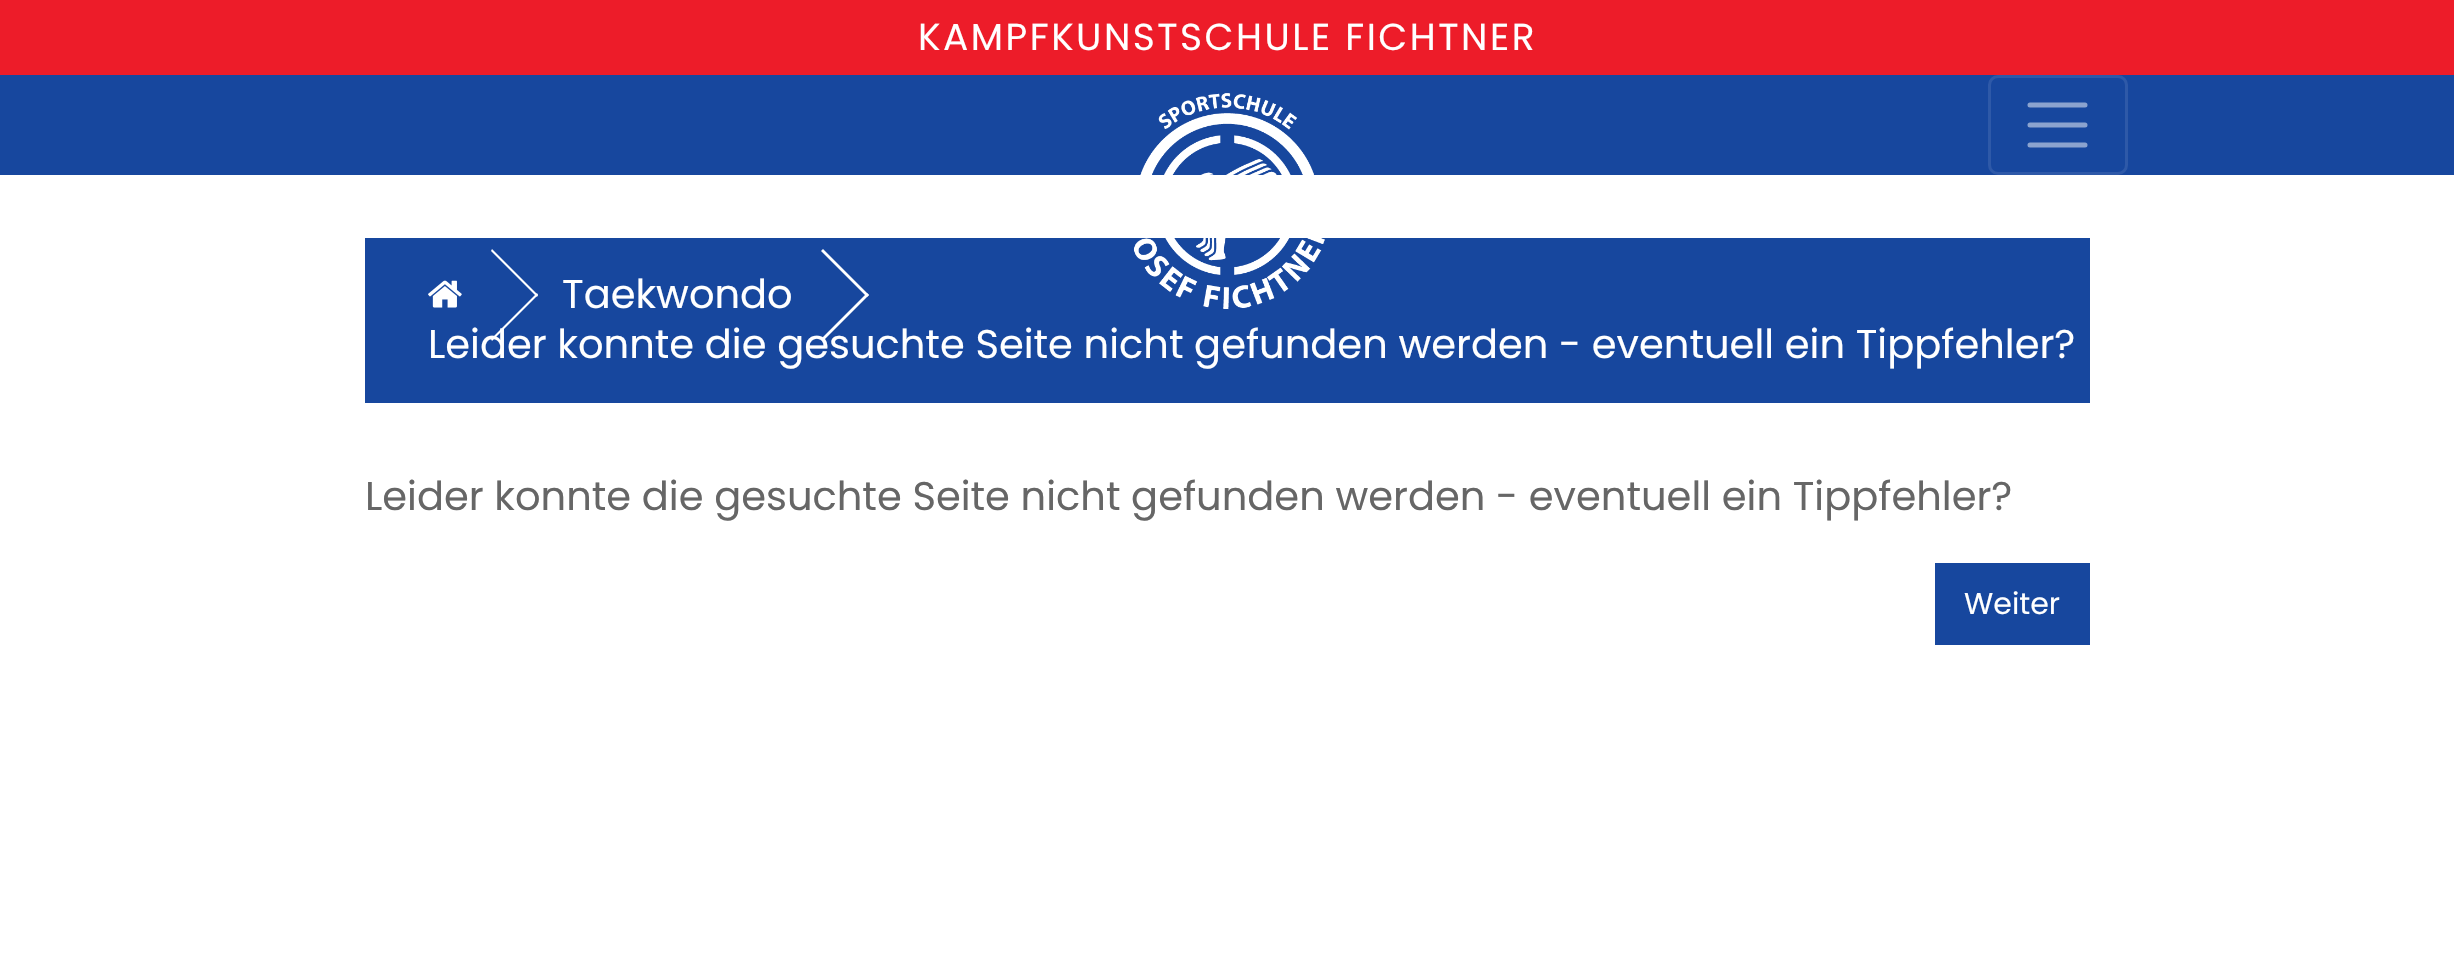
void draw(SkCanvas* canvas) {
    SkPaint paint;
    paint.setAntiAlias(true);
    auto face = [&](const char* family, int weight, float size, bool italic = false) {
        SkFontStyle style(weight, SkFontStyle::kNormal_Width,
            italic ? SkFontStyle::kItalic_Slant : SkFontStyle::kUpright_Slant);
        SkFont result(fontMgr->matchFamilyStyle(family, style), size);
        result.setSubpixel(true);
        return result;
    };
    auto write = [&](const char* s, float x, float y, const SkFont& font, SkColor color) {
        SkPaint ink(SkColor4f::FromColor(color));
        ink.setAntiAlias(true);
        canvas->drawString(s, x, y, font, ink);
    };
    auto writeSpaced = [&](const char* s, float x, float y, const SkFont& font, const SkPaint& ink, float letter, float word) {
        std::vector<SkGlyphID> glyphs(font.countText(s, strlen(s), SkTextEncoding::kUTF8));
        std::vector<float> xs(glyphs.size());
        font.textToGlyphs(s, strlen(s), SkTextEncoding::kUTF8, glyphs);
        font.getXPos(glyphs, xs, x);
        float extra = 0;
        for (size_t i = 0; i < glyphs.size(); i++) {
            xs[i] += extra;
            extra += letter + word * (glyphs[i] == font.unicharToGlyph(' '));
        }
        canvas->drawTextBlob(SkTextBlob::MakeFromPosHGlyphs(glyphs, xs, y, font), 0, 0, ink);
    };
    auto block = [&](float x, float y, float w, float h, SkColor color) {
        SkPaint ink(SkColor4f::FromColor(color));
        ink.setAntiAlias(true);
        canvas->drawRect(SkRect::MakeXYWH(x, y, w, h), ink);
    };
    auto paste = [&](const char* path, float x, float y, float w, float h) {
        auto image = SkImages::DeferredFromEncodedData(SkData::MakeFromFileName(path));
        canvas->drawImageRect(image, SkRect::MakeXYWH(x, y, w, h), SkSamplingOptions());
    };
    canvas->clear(SK_ColorWHITE);
    block(0, 0, 2454, 75, SkColorSetRGB(237, 28, 41));
    auto kFont1 = face("Poppins", 400, 37.5f);
    paint.setColor(SK_ColorWHITE);
    writeSpaced("KAMPFKUNSTSCHULE FICHTNER", 918, 50, kFont1, paint, 2.5f, 0);
    block(0, 75, 2454, 100, SkColorSetRGB(23, 71, 158));
    block(365, 238, 1725, 165, SkColorSetRGB(23, 71, 158));
    paste("pic1.png", 1133, 93, 192, 217);
    paint.setStyle(SkPaint::kStroke_Style);
    paint.setStrokeWidth(3);
    paint.setColor(SkColorSetRGB(46, 89, 168));
    canvas->drawRoundRect(SkRect::MakeXYWH(1989.5f, 76.5f, 137, 97), 8.5f, 8.5f, paint);
    paint.setStrokeWidth(5);
    paint.setStrokeCap(SkPaint::kRound_Cap);
    paint.setColor(SkColorSetRGB(139, 163, 207));
    canvas->drawPath(SkPathBuilder().moveTo(2030, 105).lineTo(2085, 105).moveTo(2030, 125).lineTo(2085, 125).moveTo(2030, 145).lineTo(2085, 145).detach(), paint);
    paste("pic2.png", 428, 280, 34, 28);
    paint.setStyle(SkPaint::kFill_Style);
    paint.setColor(SK_ColorWHITE);
    canvas->drawPath(SkPathBuilder().moveTo(491, 251).lineTo(492, 249).lineTo(538, 295).lineTo(537, 297).close().detach(), paint);
    canvas->drawPath(SkPathBuilder().moveTo(491, 339).lineTo(537, 293).lineTo(538, 295).lineTo(492, 341).close().detach(), paint);
    auto kFont2 = face("Poppins", 400, 40);
    write("Taekwondo", 562, 308, kFont2, SK_ColorWHITE);
    canvas->drawPath(SkPathBuilder().moveTo(821, 251).lineTo(823, 249).lineTo(869, 295).lineTo(867, 297).close().detach(), paint);
    canvas->drawPath(SkPathBuilder().moveTo(821, 339).lineTo(867, 293).lineTo(869, 295).lineTo(823, 341).close().detach(), paint);
    write("Leider konnte die gesuchte Seite nicht gefunden werden - eventuell ein Tippfehler?", 428, 358, kFont2, SK_ColorWHITE);
    write("Leider konnte die gesuchte Seite nicht gefunden werden - eventuell ein Tippfehler?", 365, 510, kFont2, SkColorSetRGB(102, 102, 102));
    block(1935, 563, 155, 82, SkColorSetRGB(23, 71, 158));
    auto kFont3 = face("Poppins", 400, 30);
    write("Weiter", 1964, 614, kFont3, SK_ColorWHITE);
}
